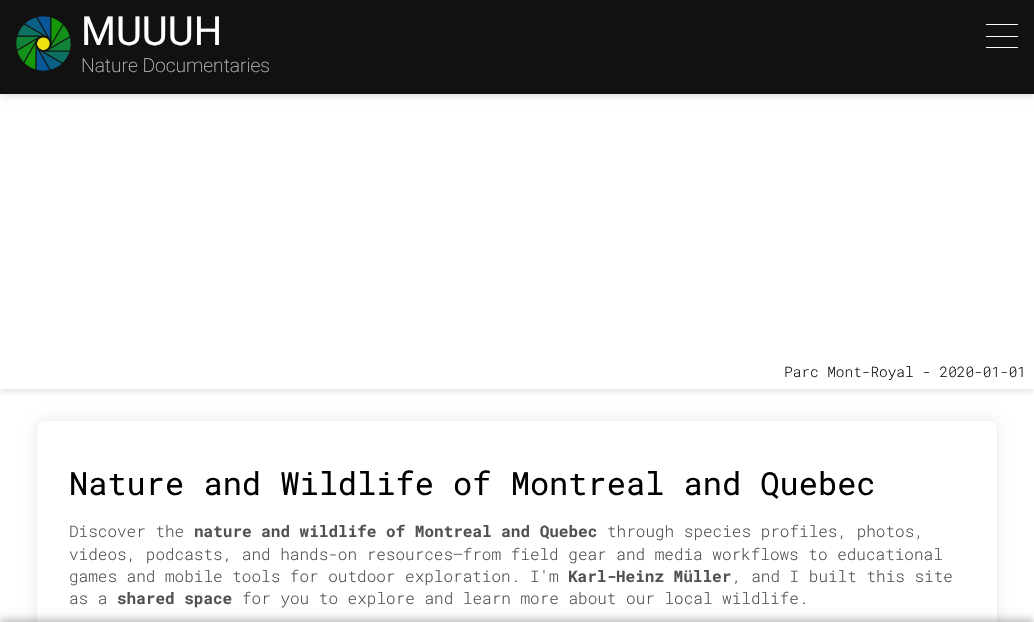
void draw(SkCanvas* canvas) {
    SkPaint paint;
    paint.setAntiAlias(true);
    auto face = [&](const char* family, int weight, float size, bool italic = false) {
        SkFontStyle style(weight, SkFontStyle::kNormal_Width,
            italic ? SkFontStyle::kItalic_Slant : SkFontStyle::kUpright_Slant);
        SkFont result(fontMgr->matchFamilyStyle(family, style), size);
        result.setSubpixel(true);
        return result;
    };
    auto write = [&](const char* s, float x, float y, const SkFont& font, SkColor color) {
        SkPaint ink(SkColor4f::FromColor(color));
        ink.setAntiAlias(true);
        canvas->drawString(s, x, y, font, ink);
    };
    auto block = [&](float x, float y, float w, float h, SkColor color) {
        SkPaint ink(SkColor4f::FromColor(color));
        ink.setAntiAlias(true);
        canvas->drawRect(SkRect::MakeXYWH(x, y, w, h), ink);
    };
    auto paste = [&](const char* path, float x, float y, float w, float h) {
        auto image = SkImages::DeferredFromEncodedData(SkData::MakeFromFileName(path));
        canvas->drawImageRect(image, SkRect::MakeXYWH(x, y, w, h), SkSamplingOptions());
    };
    canvas->clear(SK_ColorWHITE);
    paint.setColor(SkColorSetARGB(26, 0, 0, 0));
    paint.setMaskFilter(SkMaskFilter::MakeBlur(kNormal_SkBlurStyle, 3));
    canvas->drawRect(SkRect::MakeXYWH(0, 3, 1034, 94), paint);
    paint.setMaskFilter(nullptr);
    block(0, 0, 1034, 94, SkColorSetRGB(17, 17, 17));
    paste("pic1.png", 16, 16, 55, 55);
    auto kFont1 = face("Roboto", 400, 40);
    write("MUUUH", 81, 45, kFont1, SK_ColorWHITE);
    block(986, 24, 32, 1, SK_ColorWHITE);
    block(986, 36, 32, 1, SK_ColorWHITE);
    block(986, 47, 32, 1, SK_ColorWHITE);
    auto kFont2 = face("Roboto", 200, 19.25f);
    write("Nature Documentaries", 81, 72, kFont2, SkColorSetRGB(191, 191, 191));
    canvas->save();
    canvas->clipRect(SkRect::MakeXYWH(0, 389, 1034, 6));
    paint.setMaskFilter(SkMaskFilter::MakeBlur(kNormal_SkBlurStyle, 3));
    canvas->drawRect(SkRect::MakeXYWH(0, 97, 1034, 295), paint);
    paint.setMaskFilter(nullptr);
    canvas->restore();
    auto kFont3 = face("Roboto Mono", 300, 14.4f);
    write("Parc Mont-Royal - 2020-01-01", 784, 377, kFont3, SkColorSetRGB(17, 17, 17));
    canvas->save();
    canvas->clipPath(SkPathBuilder(SkPathFillType::kEvenOdd).moveTo(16, 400).lineTo(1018, 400).lineTo(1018, 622).lineTo(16, 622).close().moveTo(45, 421).lineTo(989, 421).cubicTo(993.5f, 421, 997, 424.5f, 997, 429).lineTo(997, 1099).cubicTo(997, 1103.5f, 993.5f, 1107, 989, 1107).lineTo(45, 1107).cubicTo(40.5f, 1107, 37, 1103.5f, 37, 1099).lineTo(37, 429).cubicTo(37, 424.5f, 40.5f, 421, 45, 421).close().detach(), true);
    paint.setMaskFilter(SkMaskFilter::MakeBlur(kNormal_SkBlurStyle, 6.5f));
    canvas->drawRoundRect(SkRect::MakeXYWH(37, 421, 960, 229), 8, 8, paint);
    paint.setMaskFilter(nullptr);
    canvas->restore();
    auto kFont4 = face("Roboto Mono", 400, 32);
    write("Nature and Wildlife of Montreal and Quebec", 69, 495, kFont4, SK_ColorBLACK);
    auto kFont5 = face("Roboto Mono", 300, 16);
    write("Discover the", 69, 537, kFont5, SkColorSetRGB(81, 81, 81));
    auto kFont6 = face("Roboto Mono", 700, 16);
    write("nature and wildlife of Montreal and Quebec", 194, 537, kFont6, SkColorSetRGB(81, 81, 81));
    write("through species profiles, photos,", 607, 537, kFont5, SkColorSetRGB(81, 81, 81));
    write("videos, podcasts, and hands-on resources—from field gear and media workflows to educational", 69, 560, kFont5, SkColorSetRGB(81, 81, 81));
    write("games and mobile tools for outdoor exploration. I'm", 69, 582, kFont5, SkColorSetRGB(81, 81, 81));
    write("Karl-Heinz Müller", 568, 582, kFont6, SkColorSetRGB(81, 81, 81));
    write(", and I built this site", 732, 582, kFont5, SkColorSetRGB(81, 81, 81));
    write("as a", 69, 604, kFont5, SkColorSetRGB(81, 81, 81));
    write("shared space", 117, 604, kFont6, SkColorSetRGB(81, 81, 81));
    write("for you to explore and learn more about our local wildlife.", 242, 604, kFont5, SkColorSetRGB(81, 81, 81));
    paint.setColor(SkColorSetARGB(77, 0, 0, 0));
    paint.setMaskFilter(SkMaskFilter::MakeBlur(kNormal_SkBlurStyle, 5));
    canvas->drawRect(SkRect::MakeXYWH(0, 620, 1034, 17), paint);
    paint.setMaskFilter(nullptr);
}
